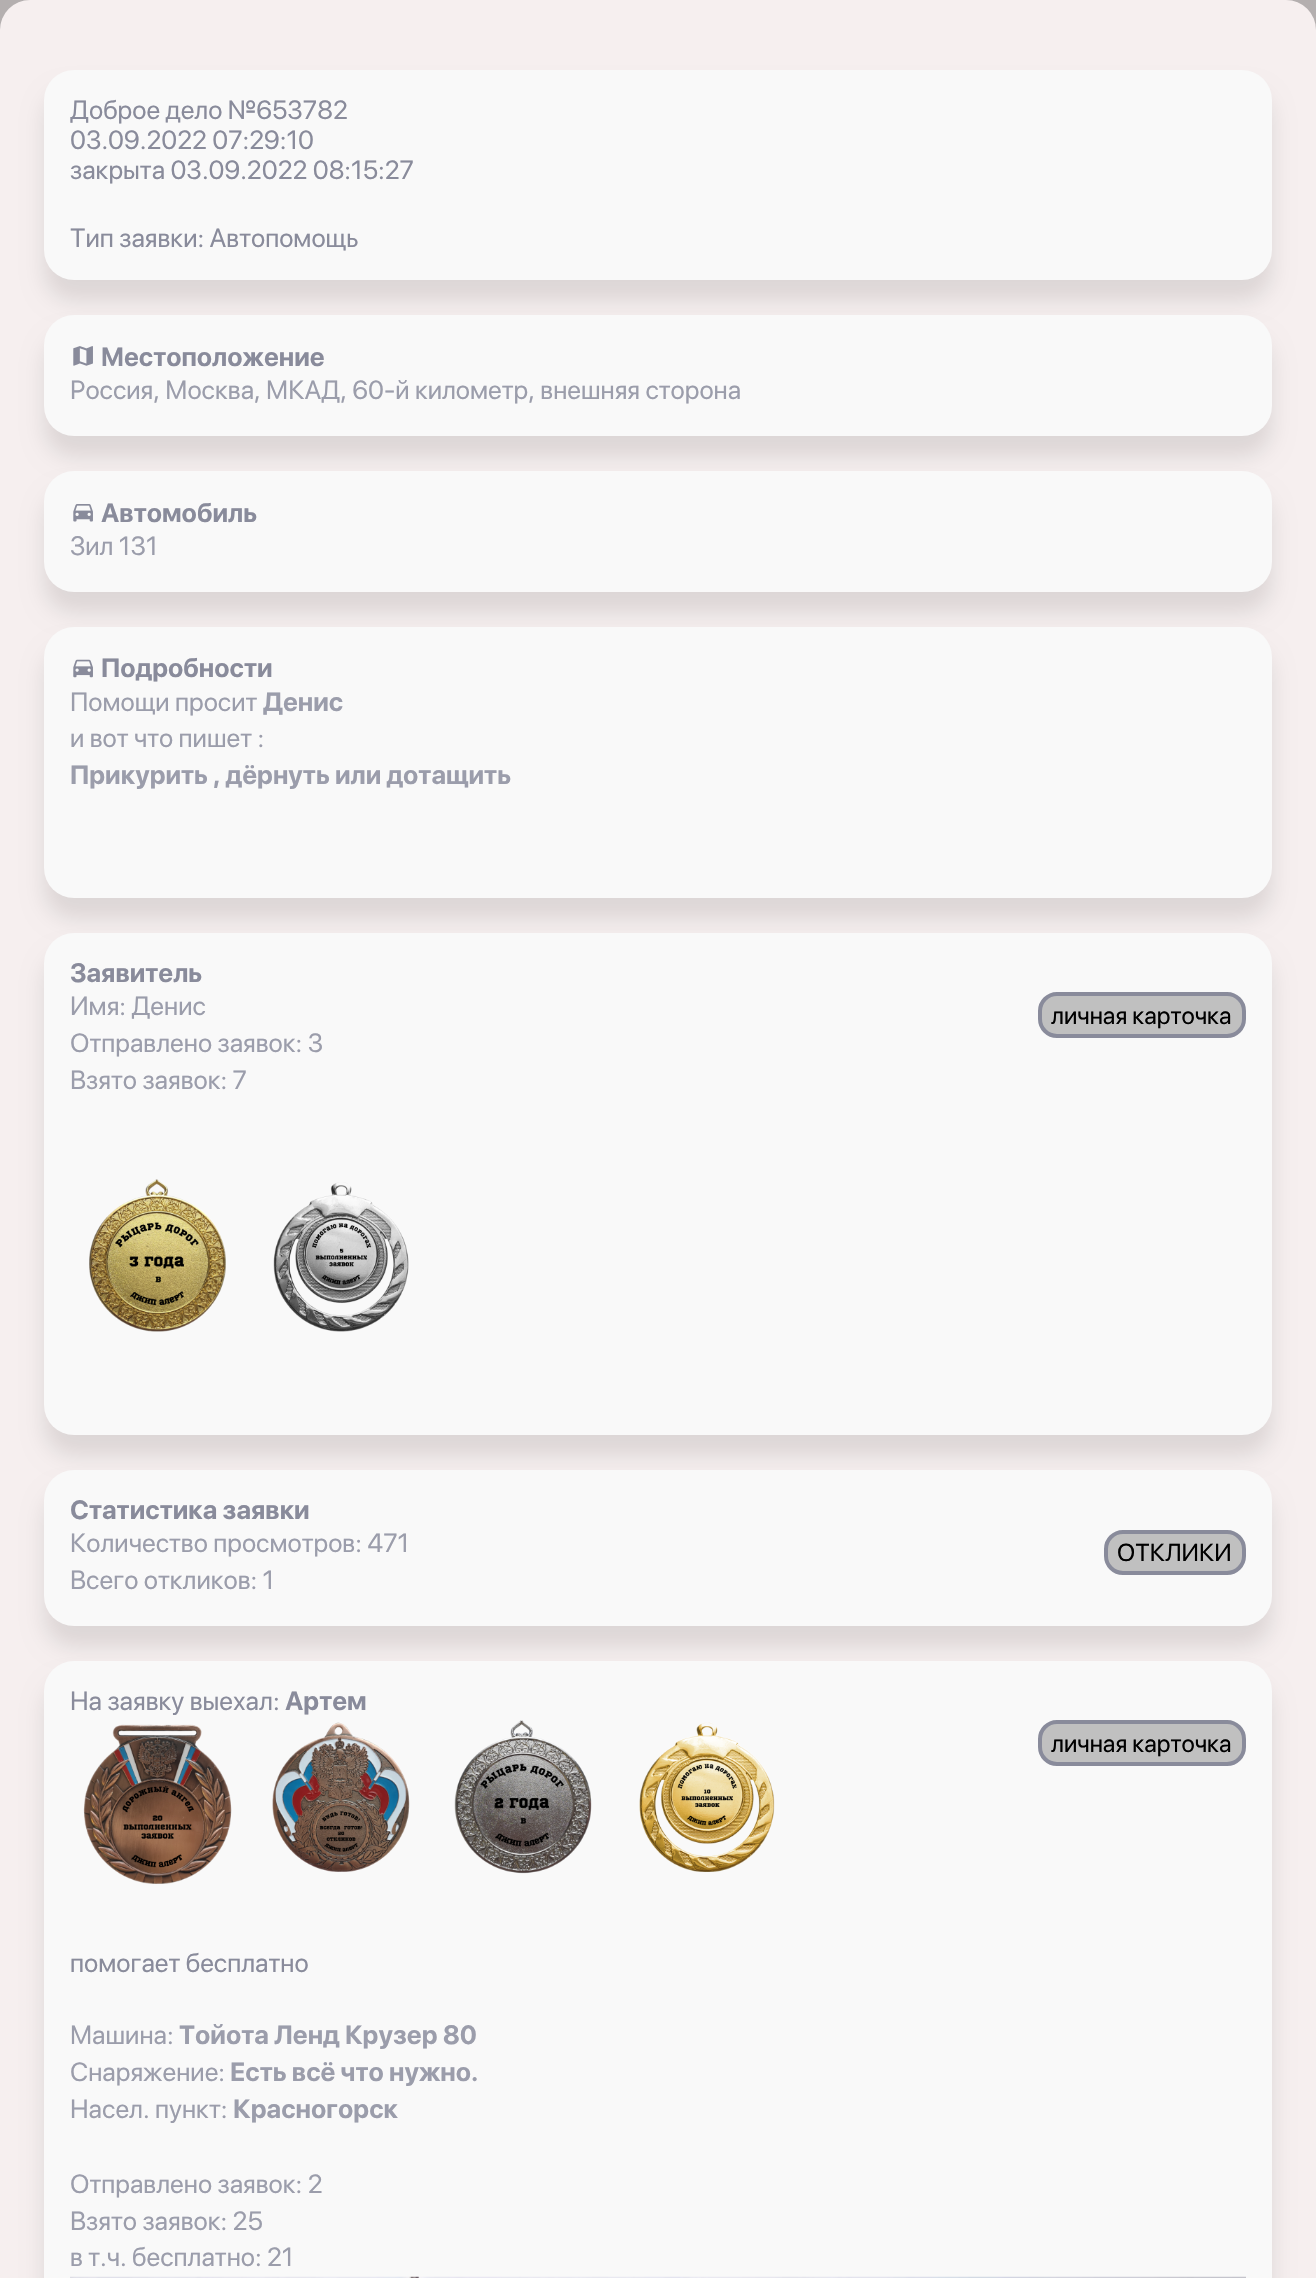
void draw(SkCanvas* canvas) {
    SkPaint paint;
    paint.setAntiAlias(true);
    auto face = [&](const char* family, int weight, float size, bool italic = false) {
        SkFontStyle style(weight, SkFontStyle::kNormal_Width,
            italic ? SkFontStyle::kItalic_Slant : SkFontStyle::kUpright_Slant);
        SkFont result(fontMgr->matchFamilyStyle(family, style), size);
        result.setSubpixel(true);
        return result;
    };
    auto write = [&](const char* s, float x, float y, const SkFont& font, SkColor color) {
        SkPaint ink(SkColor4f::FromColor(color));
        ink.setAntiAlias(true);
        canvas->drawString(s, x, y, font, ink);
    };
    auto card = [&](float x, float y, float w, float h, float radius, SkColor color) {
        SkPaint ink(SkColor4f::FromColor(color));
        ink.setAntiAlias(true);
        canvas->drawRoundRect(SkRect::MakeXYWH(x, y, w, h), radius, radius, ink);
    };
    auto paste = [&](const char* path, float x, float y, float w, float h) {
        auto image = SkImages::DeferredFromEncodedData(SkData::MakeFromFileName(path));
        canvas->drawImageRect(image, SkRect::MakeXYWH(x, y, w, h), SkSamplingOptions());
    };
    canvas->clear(SkColorSetRGB(180, 175, 175));
    card(0, 0, 1316, 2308, 30, SkColorSetRGB(246, 239, 239));
    paint.setColor(SkColorSetARGB(26, 0, 0, 0));
    paint.setMaskFilter(SkMaskFilter::MakeBlur(kNormal_SkBlurStyle, 10.5f));
    canvas->drawRoundRect(SkRect::MakeXYWH(44, 91, 1228, 210), 30, 30, paint);
    paint.setMaskFilter(nullptr);
    card(44, 70, 1228, 210, 30, SkColorSetRGB(249, 249, 249));
    auto kFont1 = face("SF Pro Display", 400, 26.25f);
    write("Доброе дело №653782", 70, 119, kFont1, SkColorSetRGB(137, 139, 155));
    write("03.09.2022 07:29:10", 70, 149, kFont1, SkColorSetRGB(137, 139, 155));
    write("закрыта 03.09.2022 08:15:27", 70, 179, kFont1, SkColorSetRGB(137, 139, 155));
    write("Тип заявки: Автопомощь", 70, 247, kFont1, SkColorSetRGB(137, 139, 155));
    paint.setMaskFilter(SkMaskFilter::MakeBlur(kNormal_SkBlurStyle, 10.5f));
    canvas->drawRoundRect(SkRect::MakeXYWH(44, 336, 1228, 121), 30, 30, paint);
    paint.setMaskFilter(nullptr);
    card(44, 315, 1228, 121, 30, SkColorSetRGB(249, 249, 249));
    paste("pic1.png", 73, 346, 20, 20);
    auto kFont2 = face("SF Pro Display", 700, 26.25f);
    write("Местоположение", 101, 366, kFont2, SkColorSetRGB(137, 139, 155));
    write("Россия, Москва, МКАД, 60-й километр, внешняя сторона", 70, 399, kFont1, SkColorSetRGB(155, 157, 171));
    paint.setMaskFilter(SkMaskFilter::MakeBlur(kNormal_SkBlurStyle, 10.5f));
    canvas->drawRoundRect(SkRect::MakeXYWH(44, 492, 1228, 121), 30, 30, paint);
    paint.setMaskFilter(nullptr);
    card(44, 471, 1228, 121, 30, SkColorSetRGB(249, 249, 249));
    paste("pic2.png", 73, 504, 20, 18);
    write("Автомобиль", 101, 522, kFont2, SkColorSetRGB(137, 139, 155));
    write("Зил 131", 70, 555, kFont1, SkColorSetRGB(155, 157, 171));
    paint.setMaskFilter(SkMaskFilter::MakeBlur(kNormal_SkBlurStyle, 10.5f));
    canvas->drawRoundRect(SkRect::MakeXYWH(44, 648, 1228, 271), 30, 30, paint);
    paint.setMaskFilter(nullptr);
    card(44, 627, 1228, 271, 30, SkColorSetRGB(249, 249, 249));
    paste("pic3.png", 73, 659, 20, 19);
    write("Подробности", 101, 677, kFont2, SkColorSetRGB(137, 139, 155));
    write("Помощи просит", 70, 711, kFont1, SkColorSetRGB(155, 157, 171));
    write("Денис", 263, 711, kFont2, SkColorSetRGB(155, 157, 171));
    write("и вот что пишет :", 70, 747, kFont1, SkColorSetRGB(155, 157, 171));
    write("Прикурить , дёрнуть или дотащить", 70, 784, kFont2, SkColorSetRGB(155, 157, 171));
    paint.setMaskFilter(SkMaskFilter::MakeBlur(kNormal_SkBlurStyle, 10.5f));
    canvas->drawRoundRect(SkRect::MakeXYWH(44, 954, 1228, 502), 30, 30, paint);
    paint.setMaskFilter(nullptr);
    card(44, 933, 1228, 502, 30, SkColorSetRGB(249, 249, 249));
    write("Заявитель", 70, 982, kFont2, SkColorSetRGB(137, 139, 155));
    write("Имя: Денис", 70, 1015, kFont1, SkColorSetRGB(155, 157, 171));
    paint.setColor(SkColorSetRGB(192, 192, 192));
    canvas->drawRoundRect(SkRect::MakeXYWH(1040, 994, 204, 42), 17, 17, paint);
    paint.setStyle(SkPaint::kStroke_Style);
    paint.setStrokeWidth(4);
    paint.setColor(SkColorSetRGB(137, 139, 155));
    canvas->drawRoundRect(SkRect::MakeXYWH(1040, 994, 204, 42), 17, 17, paint);
    auto kFont3 = face("SF Pro Display", 400, 24.5f);
    write("личная карточка", 1051, 1024, kFont3, SK_ColorBLACK);
    write("Отправлено заявок: 3", 70, 1052, kFont1, SkColorSetRGB(155, 157, 171));
    write("Взято заявок: 7", 70, 1089, kFont1, SkColorSetRGB(155, 157, 171));
    paste("pic4.png", 89, 1179, 137, 153);
    paste("pic5.png", 273, 1182, 136, 150);
    paint.setStyle(SkPaint::kFill_Style);
    paint.setColor(SkColorSetARGB(26, 0, 0, 0));
    paint.setMaskFilter(SkMaskFilter::MakeBlur(kNormal_SkBlurStyle, 10.5f));
    canvas->drawRoundRect(SkRect::MakeXYWH(44, 1491, 1228, 156), 30, 30, paint);
    paint.setMaskFilter(nullptr);
    card(44, 1470, 1228, 156, 30, SkColorSetRGB(249, 249, 249));
    write("Статистика заявки", 70, 1519, kFont2, SkColorSetRGB(137, 139, 155));
    write("Количество просмотров: 471", 70, 1552, kFont1, SkColorSetRGB(155, 157, 171));
    paint.setColor(SkColorSetRGB(192, 192, 192));
    canvas->drawRoundRect(SkRect::MakeXYWH(1106, 1532, 138, 41), 17, 17, paint);
    paint.setStyle(SkPaint::kStroke_Style);
    paint.setColor(SkColorSetRGB(137, 139, 155));
    canvas->drawRoundRect(SkRect::MakeXYWH(1106, 1532, 138, 41), 17, 17, paint);
    write("ОТКЛИКИ", 1117, 1561, kFont3, SK_ColorBLACK);
    write("Всего откликов: 1", 70, 1589, kFont1, SkColorSetRGB(155, 157, 171));
    paint.setStyle(SkPaint::kFill_Style);
    paint.setColor(SkColorSetARGB(26, 0, 0, 0));
    paint.setMaskFilter(SkMaskFilter::MakeBlur(kNormal_SkBlurStyle, 10.5f));
    canvas->drawRoundRect(SkRect::MakeXYWH(44, 1682, 1228, 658), 30, 30, paint);
    paint.setMaskFilter(nullptr);
    card(44, 1661, 1228, 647, 30, SkColorSetRGB(249, 249, 249));
    write("На заявку выехал:", 70, 1710, kFont1, SkColorSetRGB(137, 139, 155));
    write("Артем", 285, 1710, kFont2, SkColorSetRGB(137, 139, 155));
    paste("pic6.png", 83, 1724, 149, 160);
    paste("pic7.png", 272, 1722, 138, 150);
    paste("pic8.png", 454, 1720, 138, 154);
    paste("pic9.png", 639, 1722, 136, 150);
    paint.setColor(SkColorSetRGB(192, 192, 192));
    canvas->drawRoundRect(SkRect::MakeXYWH(1040, 1722, 204, 42), 17, 17, paint);
    paint.setStyle(SkPaint::kStroke_Style);
    paint.setColor(SkColorSetRGB(137, 139, 155));
    canvas->drawRoundRect(SkRect::MakeXYWH(1040, 1722, 204, 42), 17, 17, paint);
    write("личная карточка", 1051, 1752, kFont3, SK_ColorBLACK);
    write("помогает бесплатно", 70, 1972, kFont1, SkColorSetRGB(137, 139, 155));
    write("Машина:", 70, 2044, kFont1, SkColorSetRGB(155, 157, 171));
    write("Тойота Ленд Крузер 80", 179, 2044, kFont2, SkColorSetRGB(155, 157, 171));
    write("Снаряжение:", 70, 2081, kFont1, SkColorSetRGB(155, 157, 171));
    write("Есть всё что нужно.", 230, 2081, kFont2, SkColorSetRGB(155, 157, 171));
    write("Насел. пункт:", 70, 2118, kFont1, SkColorSetRGB(155, 157, 171));
    write("Красногорск", 233, 2118, kFont2, SkColorSetRGB(155, 157, 171));
    write("Отправлено заявок: 2", 70, 2193, kFont1, SkColorSetRGB(155, 157, 171));
    write("Взято заявок: 25", 70, 2230, kFont1, SkColorSetRGB(155, 157, 171));
    write("в т.ч. бесплатно: 21", 70, 2266, kFont1, SkColorSetRGB(155, 157, 171));
    paste("pic10.png", 70, 2276, 1176, 2);
}
